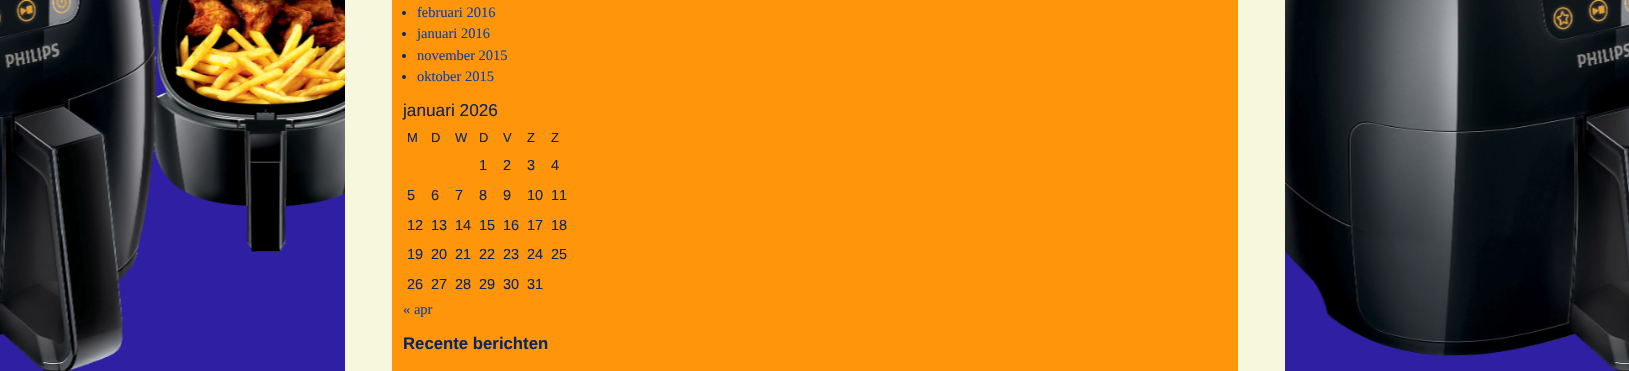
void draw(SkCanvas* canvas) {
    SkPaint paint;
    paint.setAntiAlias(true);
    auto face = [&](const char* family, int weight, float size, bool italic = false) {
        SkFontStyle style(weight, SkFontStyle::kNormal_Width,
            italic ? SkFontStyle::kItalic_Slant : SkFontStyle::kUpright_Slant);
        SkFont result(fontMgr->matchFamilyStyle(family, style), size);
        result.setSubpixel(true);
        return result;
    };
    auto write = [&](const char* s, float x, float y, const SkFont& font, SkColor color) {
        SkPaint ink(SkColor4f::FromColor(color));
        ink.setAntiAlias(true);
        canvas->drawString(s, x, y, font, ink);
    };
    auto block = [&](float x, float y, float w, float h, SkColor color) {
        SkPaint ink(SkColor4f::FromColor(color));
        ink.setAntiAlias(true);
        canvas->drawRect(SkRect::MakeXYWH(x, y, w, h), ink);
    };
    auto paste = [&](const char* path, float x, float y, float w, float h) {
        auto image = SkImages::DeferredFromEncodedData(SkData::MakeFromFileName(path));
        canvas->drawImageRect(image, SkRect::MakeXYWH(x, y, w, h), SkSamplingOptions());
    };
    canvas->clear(SkColorSetRGB(46, 31, 163));
    paste("pic1.png", 0, 0, 1629, 371);
    block(345, 0, 940, 371, SkColorSetRGB(246, 247, 220));
    block(392, 0, 846, 371, SkColorSetRGB(255, 149, 10));
    paint.setColor(SkColorSetRGB(8, 38, 99));
    canvas->drawCircle(404, 13, 2, paint);
    auto kFont1 = face("Liberation Serif", 400, 14.5f);
    write("februari 2016", 417, 17, kFont1, SkColorSetRGB(13, 64, 166));
    canvas->drawCircle(404, 34, 2, paint);
    write("januari 2016", 417, 38, kFont1, SkColorSetRGB(13, 64, 166));
    canvas->drawCircle(404, 56, 2, paint);
    write("november 2015", 417, 60, kFont1, SkColorSetRGB(13, 64, 166));
    canvas->drawCircle(404, 77, 2, paint);
    write("oktober 2015", 417, 81, kFont1, SkColorSetRGB(13, 64, 166));
    auto kFont2 = face("Liberation Sans", 400, 17.25f);
    write("januari 2026", 403, 116, kFont2, SkColorSetRGB(8, 38, 99));
    auto kFont3 = face("Liberation Sans", 400, 13);
    write("M", 407, 142, kFont3, SkColorSetRGB(8, 38, 99));
    write("D", 431, 142, kFont3, SkColorSetRGB(8, 38, 99));
    write("W", 455, 142, kFont3, SkColorSetRGB(8, 38, 99));
    write("D", 479, 142, kFont3, SkColorSetRGB(8, 38, 99));
    write("V", 503, 142, kFont3, SkColorSetRGB(8, 38, 99));
    write("Z", 527, 142, kFont3, SkColorSetRGB(8, 38, 99));
    write("Z", 551, 142, kFont3, SkColorSetRGB(8, 38, 99));
    auto kFont4 = face("Liberation Sans", 400, 14.5f);
    write("1", 479, 170, kFont4, SkColorSetRGB(8, 38, 99));
    write("2", 503, 170, kFont4, SkColorSetRGB(8, 38, 99));
    write("3", 527, 170, kFont4, SkColorSetRGB(8, 38, 99));
    write("4", 551, 170, kFont4, SkColorSetRGB(8, 38, 99));
    write("5", 407, 200, kFont4, SkColorSetRGB(8, 38, 99));
    write("6", 431, 200, kFont4, SkColorSetRGB(8, 38, 99));
    write("7", 455, 200, kFont4, SkColorSetRGB(8, 38, 99));
    write("8", 479, 200, kFont4, SkColorSetRGB(8, 38, 99));
    write("9", 503, 200, kFont4, SkColorSetRGB(8, 38, 99));
    write("10", 527, 200, kFont4, SkColorSetRGB(8, 38, 99));
    write("11", 551, 200, kFont4, SkColorSetRGB(8, 38, 99));
    write("12", 407, 230, kFont4, SkColorSetRGB(8, 38, 99));
    write("13", 431, 230, kFont4, SkColorSetRGB(8, 38, 99));
    write("14", 455, 230, kFont4, SkColorSetRGB(8, 38, 99));
    write("15", 479, 230, kFont4, SkColorSetRGB(8, 38, 99));
    write("16", 503, 230, kFont4, SkColorSetRGB(8, 38, 99));
    write("17", 527, 230, kFont4, SkColorSetRGB(8, 38, 99));
    write("18", 551, 230, kFont4, SkColorSetRGB(8, 38, 99));
    write("19", 407, 259, kFont4, SkColorSetRGB(8, 38, 99));
    write("20", 431, 259, kFont4, SkColorSetRGB(8, 38, 99));
    write("21", 455, 259, kFont4, SkColorSetRGB(8, 38, 99));
    write("22", 479, 259, kFont4, SkColorSetRGB(8, 38, 99));
    write("23", 503, 259, kFont4, SkColorSetRGB(8, 38, 99));
    write("24", 527, 259, kFont4, SkColorSetRGB(8, 38, 99));
    write("25", 551, 259, kFont4, SkColorSetRGB(8, 38, 99));
    write("26", 407, 289, kFont4, SkColorSetRGB(8, 38, 99));
    write("27", 431, 289, kFont4, SkColorSetRGB(8, 38, 99));
    write("28", 455, 289, kFont4, SkColorSetRGB(8, 38, 99));
    write("29", 479, 289, kFont4, SkColorSetRGB(8, 38, 99));
    write("30", 503, 289, kFont4, SkColorSetRGB(8, 38, 99));
    write("31", 527, 289, kFont4, SkColorSetRGB(8, 38, 99));
    write("« apr", 403, 314, kFont1, SkColorSetRGB(13, 64, 166));
    auto kFont5 = face("Liberation Sans", 700, 16.75f);
    write("Recente berichten", 403, 349, kFont5, SkColorSetRGB(8, 38, 99));
}
